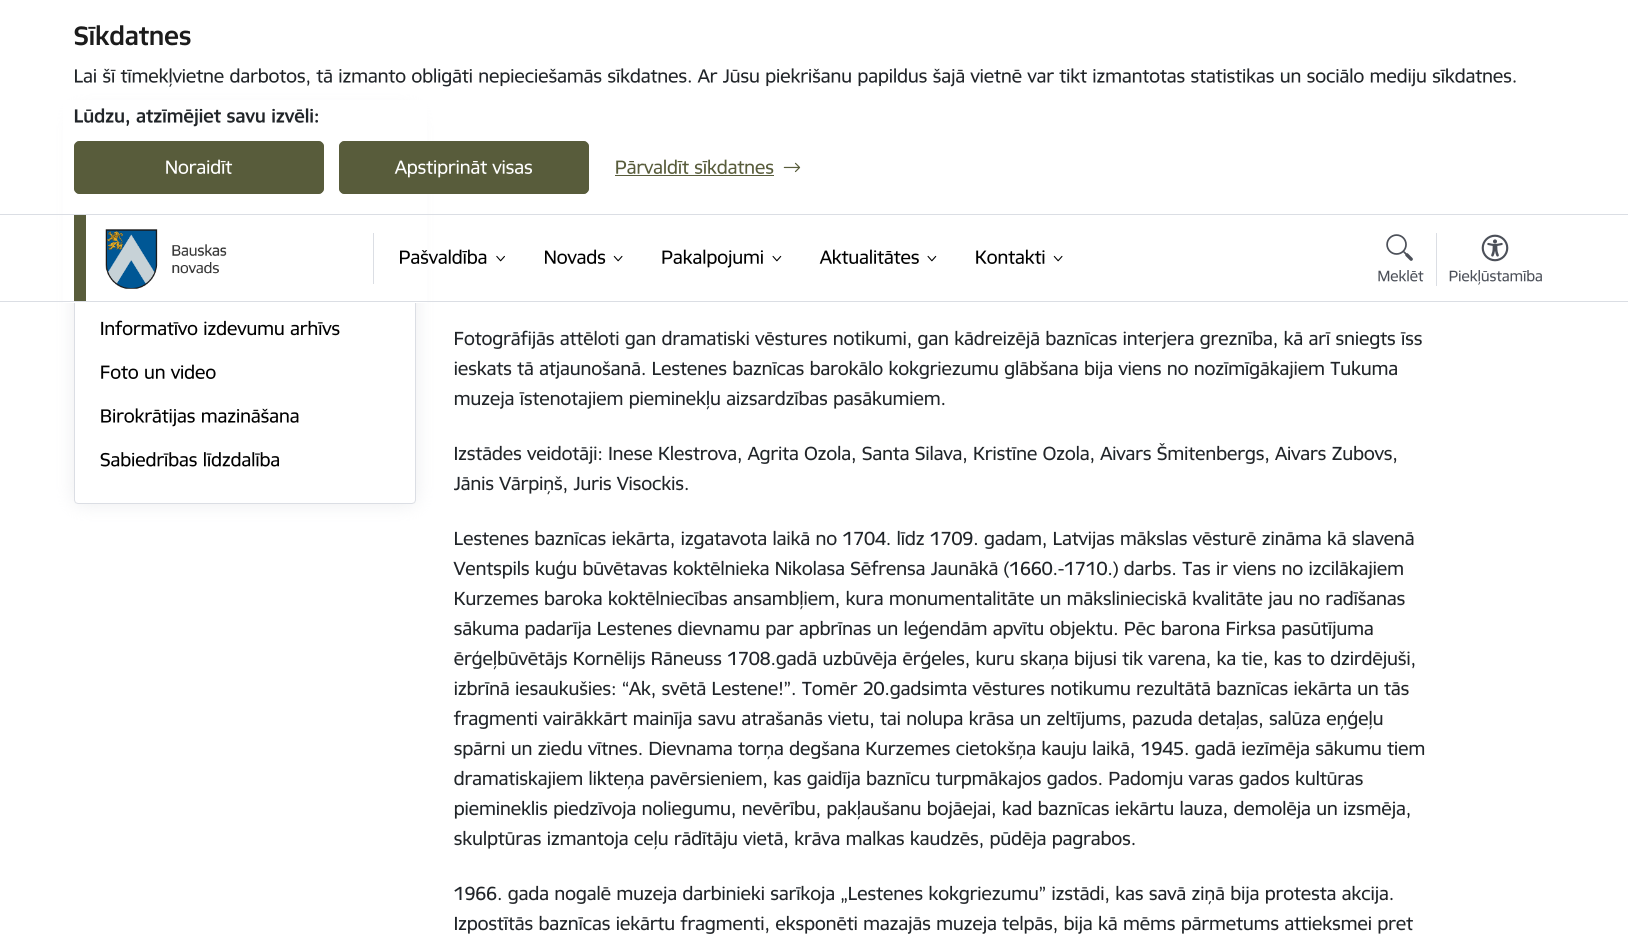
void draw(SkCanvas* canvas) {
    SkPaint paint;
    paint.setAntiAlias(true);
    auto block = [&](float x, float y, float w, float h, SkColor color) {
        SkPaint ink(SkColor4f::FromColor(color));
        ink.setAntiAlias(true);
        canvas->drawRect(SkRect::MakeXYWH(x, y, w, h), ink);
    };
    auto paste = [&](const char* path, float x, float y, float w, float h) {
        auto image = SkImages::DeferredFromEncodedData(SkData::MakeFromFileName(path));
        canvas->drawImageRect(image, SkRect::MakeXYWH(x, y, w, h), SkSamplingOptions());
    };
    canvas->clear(SK_ColorWHITE);
    paint.setColor(SkColorSetARGB(128, 216, 218, 221));
    paint.setMaskFilter(SkMaskFilter::MakeBlur(kNormal_SkBlurStyle, 9.5f));
    canvas->drawRoundRect(SkRect::MakeXYWH(74, 111, 342, 393), 4, 4, paint);
    paint.setMaskFilter(nullptr);
    paint.setColor(SK_ColorWHITE);
    canvas->drawRoundRect(SkRect::MakeXYWH(74.5f, 111.5f, 341, 392), 3.5f, 3.5f, paint);
    paint.setStyle(SkPaint::kStroke_Style);
    paint.setStrokeWidth(1);
    paint.setColor(SkColorSetRGB(219, 222, 228));
    canvas->drawRoundRect(SkRect::MakeXYWH(74.5f, 111.5f, 341, 392), 3.5f, 3.5f, paint);
    block(63, 100, 364, 203, SK_ColorWHITE);
    block(0, 214, 1628, 1, SkColorSetRGB(219, 222, 228));
    paste("pic1.png", 74, 25, 117, 21);
    paste("pic2.png", 75, 68, 1441, 19);
    paste("pic3.png", 74, 108, 244, 19);
    paint.setStyle(SkPaint::kFill_Style);
    paint.setColor(SkColorSetRGB(88, 92, 59));
    canvas->drawRoundRect(SkRect::MakeXYWH(74.5f, 141.5f, 249, 52), 4.5f, 4.5f, paint);
    paint.setStyle(SkPaint::kStroke_Style);
    canvas->drawRoundRect(SkRect::MakeXYWH(74.5f, 141.5f, 249, 52), 4.5f, 4.5f, paint);
    paste("pic4.png", 166, 159, 67, 15);
    paint.setStyle(SkPaint::kFill_Style);
    canvas->drawRoundRect(SkRect::MakeXYWH(339.5f, 141.5f, 249, 52), 4.5f, 4.5f, paint);
    paint.setStyle(SkPaint::kStroke_Style);
    canvas->drawRoundRect(SkRect::MakeXYWH(339.5f, 141.5f, 249, 52), 4.5f, 4.5f, paint);
    paste("pic5.png", 394, 160, 138, 18);
    paste("pic6.png", 616, 159, 158, 15);
    paste("pic7.png", 783, 162, 18, 11);
    block(615, 175, 159, 1, SkColorSetRGB(88, 92, 59));
    block(0, 301, 1628, 1, SkColorSetRGB(219, 222, 228));
    block(55, 301, 1519, 1, SK_ColorWHITE);
    block(55, 301, 1519, 1, SkColorSetRGB(219, 222, 228));
    block(74, 215, 12, 86, SkColorSetRGB(88, 92, 59));
    paste("pic8.png", 105, 229, 122, 60);
    block(373, 233, 1, 51, SkColorSetRGB(219, 222, 228));
    paste("pic9.png", 400, 249, 87, 15);
    paste("pic10.png", 496, 255, 9, 7);
    paste("pic11.png", 545, 249, 61, 15);
    paste("pic12.png", 613, 255, 10, 7);
    paste("pic13.png", 662, 249, 101, 19);
    paste("pic14.png", 772, 255, 10, 7);
    paste("pic15.png", 819, 249, 100, 15);
    paste("pic14.png", 927, 255, 10, 7);
    paste("pic16.png", 976, 249, 69, 15);
    paste("pic12.png", 1053, 255, 10, 7);
    paste("pic17.png", 1386, 234, 27, 27);
    paste("pic18.png", 1378, 270, 46, 12);
    block(1436, 233, 1, 53, SkColorSetRGB(219, 222, 228));
    paste("pic19.png", 1481, 234, 28, 28);
    paste("pic20.png", 1449, 270, 93, 15);
    paste("pic21.png", 101, 320, 239, 16);
    paste("pic22.png", 101, 364, 115, 15);
    paste("pic23.png", 101, 408, 198, 19);
    paste("pic24.png", 100, 452, 179, 15);
    paste("pic25.png", 455, 330, 967, 19);
    paste("pic26.png", 454, 360, 943, 19);
    paste("pic27.png", 454, 390, 491, 20);
    paste("pic28.png", 455, 443, 942, 21);
    paste("pic29.png", 454, 475, 234, 20);
    paste("pic30.png", 455, 530, 959, 19);
    paste("pic31.png", 453, 560, 950, 19);
    paste("pic32.png", 455, 590, 950, 20);
    paste("pic33.png", 454, 620, 919, 19);
    paste("pic34.png", 454, 650, 961, 20);
    paste("pic35.png", 454, 680, 955, 19);
    paste("pic36.png", 453, 710, 930, 20);
    paste("pic37.png", 454, 740, 971, 20);
    paste("pic38.png", 454, 770, 909, 20);
    paste("pic39.png", 454, 800, 956, 20);
    paste("pic40.png", 454, 830, 681, 20);
    paste("pic41.png", 454, 885, 939, 20);
    paste("pic42.png", 455, 915, 958, 19);
}
